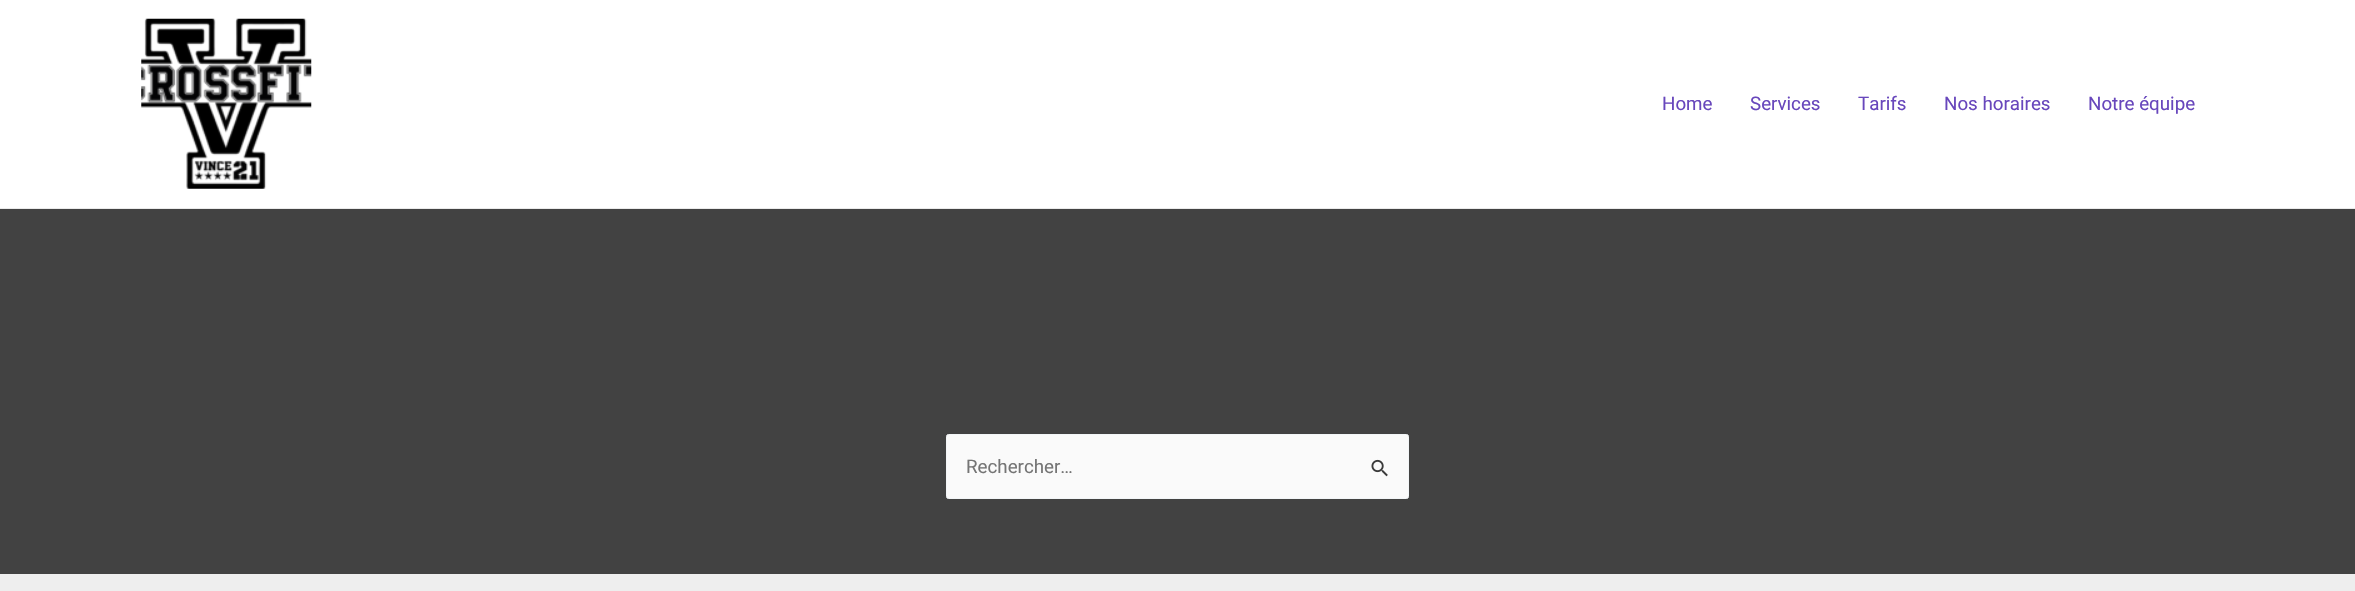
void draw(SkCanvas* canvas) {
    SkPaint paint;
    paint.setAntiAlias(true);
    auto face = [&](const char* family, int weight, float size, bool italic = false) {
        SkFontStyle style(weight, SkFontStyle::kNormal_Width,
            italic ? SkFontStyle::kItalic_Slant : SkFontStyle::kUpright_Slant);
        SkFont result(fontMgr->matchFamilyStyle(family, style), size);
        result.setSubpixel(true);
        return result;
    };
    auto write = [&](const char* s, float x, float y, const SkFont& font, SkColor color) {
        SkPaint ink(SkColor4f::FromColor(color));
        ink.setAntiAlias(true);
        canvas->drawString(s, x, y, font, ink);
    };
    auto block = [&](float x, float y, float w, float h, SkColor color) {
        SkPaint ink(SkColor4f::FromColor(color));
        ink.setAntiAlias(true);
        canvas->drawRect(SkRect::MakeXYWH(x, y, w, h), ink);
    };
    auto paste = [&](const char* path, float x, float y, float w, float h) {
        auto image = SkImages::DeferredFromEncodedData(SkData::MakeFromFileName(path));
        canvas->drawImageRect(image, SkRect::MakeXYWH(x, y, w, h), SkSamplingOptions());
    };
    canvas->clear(SkColorSetRGB(66, 66, 66));
    block(0, 0, 2355, 208, SK_ColorWHITE);
    block(0, 208, 2355, 1, SkColorSetRGB(234, 234, 234));
    paste("pic1.png", 141, 18, 171, 171);
    auto kFont1 = face("Roboto", 400, 18.75f);
    write("Home", 1662, 110, kFont1, SkColorSetRGB(104, 71, 188));
    write("Services", 1750, 110, kFont1, SkColorSetRGB(104, 71, 188));
    write("Tarifs", 1858, 110, kFont1, SkColorSetRGB(104, 71, 188));
    write("Nos horaires", 1944, 110, kFont1, SkColorSetRGB(104, 71, 188));
    write("Notre équipe", 2088, 110, kFont1, SkColorSetRGB(104, 71, 188));
    paint.setColor(SkColorSetRGB(250, 250, 250));
    canvas->drawRoundRect(SkRect::MakeXYWH(946.5f, 434.5f, 462, 64), 2, 2, paint);
    paint.setStyle(SkPaint::kStroke_Style);
    paint.setStrokeWidth(1);
    paint.setColor(SkColorSetRGB(242, 245, 247));
    canvas->drawRoundRect(SkRect::MakeXYWH(946.5f, 434.5f, 462, 64), 2, 2, paint);
    write("Rechercher…", 966, 473, kFont1, SkColorSetRGB(117, 117, 117));
    paste("pic2.png", 1371, 459, 17, 18);
    block(0, 574, 2355, 17, SkColorSetRGB(238, 238, 238));
}
